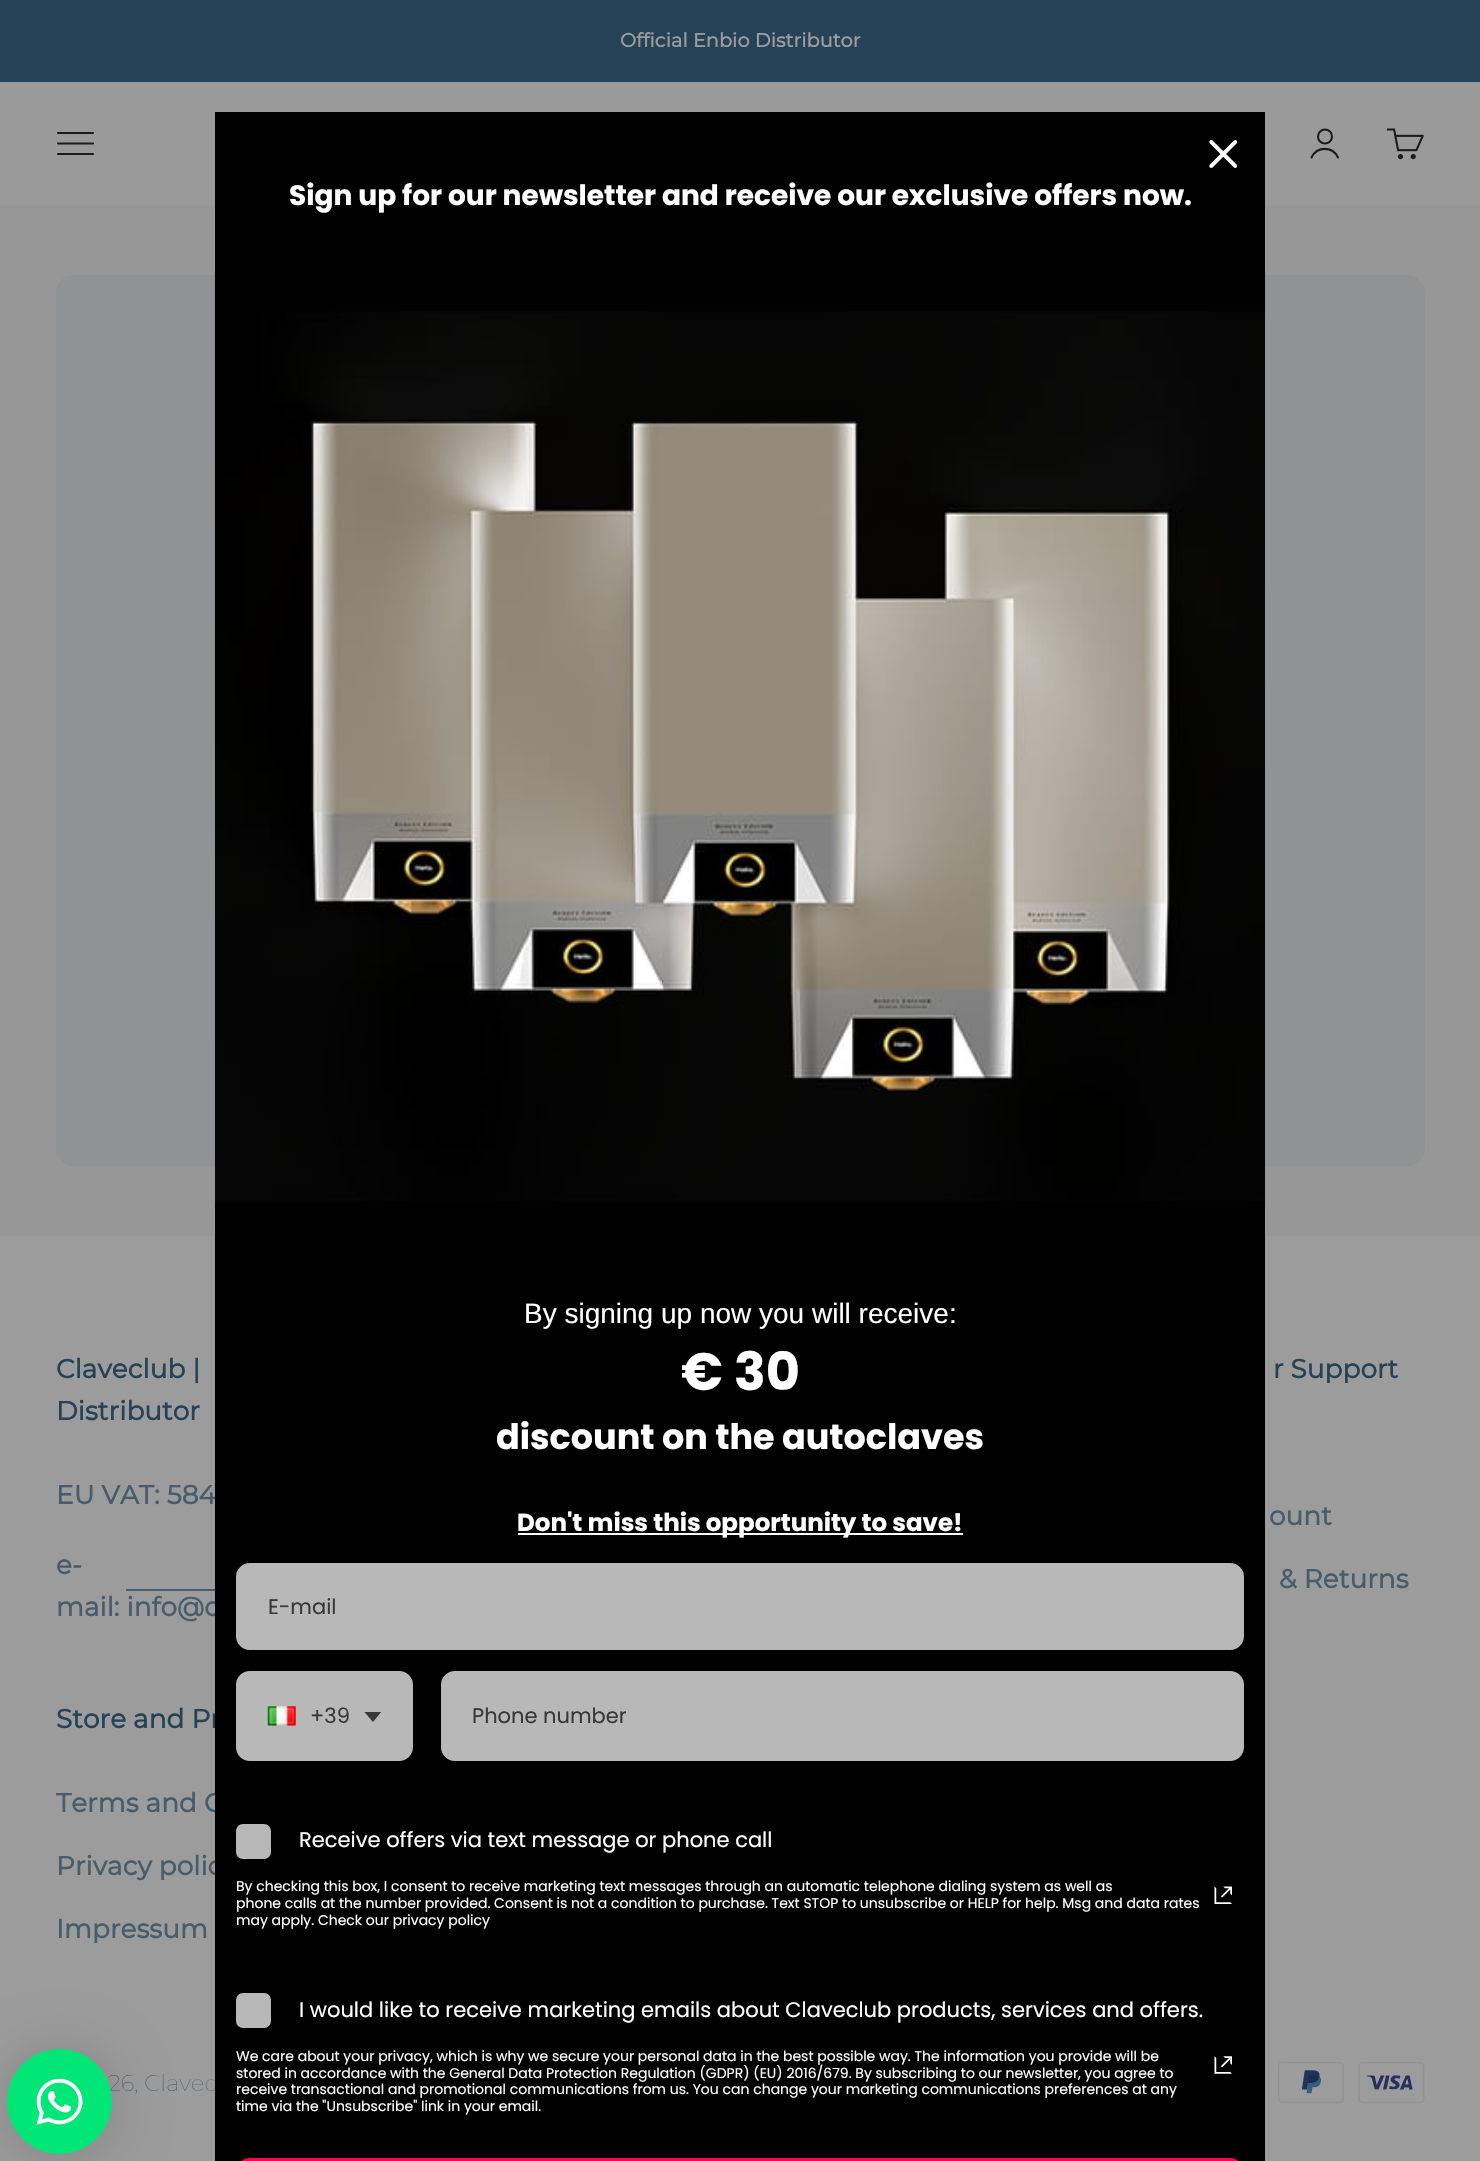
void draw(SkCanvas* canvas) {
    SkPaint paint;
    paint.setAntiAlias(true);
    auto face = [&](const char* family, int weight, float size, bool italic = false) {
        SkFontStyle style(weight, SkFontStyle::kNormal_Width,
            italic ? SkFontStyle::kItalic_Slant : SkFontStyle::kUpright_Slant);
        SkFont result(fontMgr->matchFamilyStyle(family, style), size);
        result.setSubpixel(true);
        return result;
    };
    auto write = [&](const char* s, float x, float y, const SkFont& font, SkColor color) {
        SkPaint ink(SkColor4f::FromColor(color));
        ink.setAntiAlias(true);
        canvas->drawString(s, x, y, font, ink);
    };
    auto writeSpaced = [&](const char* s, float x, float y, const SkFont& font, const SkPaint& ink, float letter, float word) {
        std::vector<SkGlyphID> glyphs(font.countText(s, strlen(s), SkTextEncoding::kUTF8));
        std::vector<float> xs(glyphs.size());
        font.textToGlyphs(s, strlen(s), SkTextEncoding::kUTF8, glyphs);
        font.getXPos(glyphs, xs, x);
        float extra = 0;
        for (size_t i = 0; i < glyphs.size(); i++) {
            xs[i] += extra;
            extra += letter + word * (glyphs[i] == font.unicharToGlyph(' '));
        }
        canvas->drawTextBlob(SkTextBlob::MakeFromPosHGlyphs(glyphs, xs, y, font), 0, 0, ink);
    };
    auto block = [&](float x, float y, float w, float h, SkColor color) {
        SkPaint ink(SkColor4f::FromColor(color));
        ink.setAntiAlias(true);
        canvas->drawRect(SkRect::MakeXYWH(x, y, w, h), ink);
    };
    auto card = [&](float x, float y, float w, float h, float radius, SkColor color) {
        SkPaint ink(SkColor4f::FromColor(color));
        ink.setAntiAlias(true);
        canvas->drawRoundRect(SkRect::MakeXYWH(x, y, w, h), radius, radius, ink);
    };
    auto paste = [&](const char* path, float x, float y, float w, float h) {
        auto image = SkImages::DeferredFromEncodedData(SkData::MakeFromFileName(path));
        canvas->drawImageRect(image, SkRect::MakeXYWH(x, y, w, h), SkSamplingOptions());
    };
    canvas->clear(SkColorSetRGB(151, 151, 151));
    block(0, 0, 1480, 82, SkColorSetRGB(37, 66, 87));
    auto kFont1 = face("Montserrat", 700, 19.25f);
    paint.setColor(SkColorSetRGB(156, 156, 156));
    writeSpaced("Official Enbio Distributor", 620, 47, kFont1, paint, 0.1f, 0);
    block(0, 82, 1480, 123, SkColorSetRGB(154, 154, 154));
    paint.setStyle(SkPaint::kStroke_Style);
    paint.setStrokeWidth(2.1f);
    paint.setStrokeCap(SkPaint::kRound_Cap);
    paint.setColor(SkColorSetRGB(28, 28, 28));
    canvas->drawPath(SkPathBuilder().moveTo(58, 133).lineTo(93, 133).moveTo(58, 143.5f).lineTo(93, 143.5f).moveTo(58, 154).lineTo(93, 154).detach(), paint);
    paint.setStrokeCap(SkPaint::kButt_Cap);
    canvas->drawCircle(1325, 136.5f, 7, paint);
    paint.setStrokeCap(SkPaint::kRound_Cap);
    canvas->drawPath(SkPathBuilder().moveTo(1311.5f, 157.5f).cubicTo(1317, 146, 1332.5f, 146, 1338, 157.5f).detach(), paint);
    paste("pic1.png", 1386, 128, 38, 32);
    card(56, 275, 1369, 891, 18, SkColorSetRGB(145, 146, 147));
    block(0, 1236, 1480, 925, SkColorSetRGB(156, 156, 156));
    auto kFont2 = face("Montserrat", 700, 26.25f);
    paint.setStyle(SkPaint::kFill_Style);
    paint.setColor(SkColorSetRGB(72, 93, 107));
    writeSpaced("EU VAT: 584", 56, 1504, kFont2, paint, 0.1f, 0);
    writeSpaced("mail: info@c", 56, 1616, kFont2, paint, 0.1f, 0);
    paint.setColor(SkColorSetRGB(37, 66, 87));
    writeSpaced("Store and Pr", 56, 1728, kFont2, paint, 0.1f, 0);
    paint.setColor(SkColorSetRGB(72, 93, 107));
    writeSpaced("Terms and C", 56, 1812, kFont2, paint, 0.1f, 0);
    writeSpaced("Privacy polic", 56, 1875, kFont2, paint, 0.1f, 0);
    auto kFont3 = face("Montserrat", 100, 22.75f);
    writeSpaced("26, Clavec", 108, 2091, kFont3, paint, 0.1f, 0);
    block(215, 112, 1050, 2049, SK_ColorBLACK);
    paste("pic2.png", 1209, 140, 28, 28);
    auto kFont4 = face("Poppins", 700, 28);
    write("Sign up for our newsletter and receive our exclusive offers now.", 289, 205, kFont4, SK_ColorWHITE);
    paste("pic3.png", 215, 311, 1050, 891);
    auto kFont5 = face("Liberation Sans", 400, 28);
    write("By signing up now you will receive:", 524, 1323, kFont5, SK_ColorWHITE);
    auto kFont6 = face("Poppins", 700, 52.5f);
    write("€ 30", 681, 1390, kFont6, SK_ColorWHITE);
    auto kFont7 = face("Poppins", 700, 35);
    write("discount on the autoclaves", 496, 1449, kFont7, SK_ColorWHITE);
    block(518, 1533, 445, 2, SK_ColorWHITE);
    auto kFont8 = face("Poppins", 700, 24.5f);
    write("Don't miss this opportunity to save!", 517, 1531, kFont8, SK_ColorWHITE);
    paint.setColor(SkColorSetRGB(184, 184, 184));
    canvas->drawRoundRect(SkRect::MakeXYWH(238, 1565, 1004, 83), 12, 12, paint);
    paint.setStyle(SkPaint::kStroke_Style);
    paint.setStrokeWidth(4);
    paint.setStrokeCap(SkPaint::kButt_Cap);
    canvas->drawRoundRect(SkRect::MakeXYWH(238, 1565, 1004, 83), 12, 12, paint);
    auto kFont9 = face("Poppins", 400, 21);
    write("E-mail", 268, 1614, kFont9, SkColorSetRGB(56, 56, 56));
    paint.setStyle(SkPaint::kFill_Style);
    canvas->drawRoundRect(SkRect::MakeXYWH(238, 1673, 173, 86), 12, 12, paint);
    paint.setStyle(SkPaint::kStroke_Style);
    canvas->drawRoundRect(SkRect::MakeXYWH(238, 1673, 173, 86), 12, 12, paint);
    paste("pic4.png", 267, 1706, 29, 20);
    write("+39", 310, 1723, kFont9, SkColorSetRGB(56, 56, 56));
    canvas->save();
    canvas->clipRect(SkRect::MakeXYWH(364, 1712, 18, 10));
    paint.setStyle(SkPaint::kFill_Style);
    paint.setColor(SkColorSetRGB(56, 56, 56));
    canvas->drawPath(SkPathBuilder(SkPathFillType::kEvenOdd).moveTo(364, 1711.5f).lineTo(381.5f, 1711.5f).lineTo(373, 1722).close().detach(), paint);
    canvas->restore();
    paint.setColor(SkColorSetRGB(184, 184, 184));
    canvas->drawRoundRect(SkRect::MakeXYWH(443, 1673, 799, 86), 12, 12, paint);
    paint.setStyle(SkPaint::kStroke_Style);
    canvas->drawRoundRect(SkRect::MakeXYWH(443, 1673, 799, 86), 12, 12, paint);
    write("Phone number", 472, 1723, kFont9, SkColorSetRGB(56, 56, 56));
    paint.setStyle(SkPaint::kFill_Style);
    canvas->drawRoundRect(SkRect::MakeXYWH(238, 1826, 31, 31), 5, 5, paint);
    paint.setStyle(SkPaint::kStroke_Style);
    canvas->drawRoundRect(SkRect::MakeXYWH(238, 1826, 31, 31), 5, 5, paint);
    write("Receive offers via text message or phone call", 299, 1847, kFont9, SK_ColorWHITE);
    auto kFont10 = face("Poppins", 400, 14);
    write("By checking this box, I consent to receive marketing text messages through an automatic telephone dialing system as well as", 236, 1891, kFont10, SK_ColorWHITE);
    write("phone calls at the number provided. Consent is not a condition to purchase. Text STOP to unsubscribe or HELP for help. Msg and data rates", 236, 1908, kFont10, SK_ColorWHITE);
    write("may apply. Check our privacy policy", 236, 1925, kFont10, SK_ColorWHITE);
    paste("pic5.png", 1214, 1886, 18, 18);
    paint.setStyle(SkPaint::kFill_Style);
    canvas->drawRoundRect(SkRect::MakeXYWH(238, 1995, 31, 31), 5, 5, paint);
    paint.setStyle(SkPaint::kStroke_Style);
    canvas->drawRoundRect(SkRect::MakeXYWH(238, 1995, 31, 31), 5, 5, paint);
    write("I would like to receive marketing emails about Claveclub products, services and offers.", 299, 2017, kFont9, SK_ColorWHITE);
    write("We care about your privacy, which is why we secure your personal data in the best possible way. The information you provide will be", 236, 2061, kFont10, SK_ColorWHITE);
    write("stored in accordance with the General Data Protection Regulation (GDPR) (EU) 2016/679. By subscribing to our newsletter, you agree to", 236, 2078, kFont10, SK_ColorWHITE);
    write("receive transactional and promotional communications from us. You can change your marketing communications preferences at any", 236, 2094, kFont10, SK_ColorWHITE);
    write("time via the \"Unsubscribe\" link in your email.", 236, 2111, kFont10, SK_ColorWHITE);
    paste("pic6.png", 1214, 2056, 18, 18);
    paint.setStyle(SkPaint::kFill_Style);
    paint.setColor(SkColorSetRGB(249, 6, 71));
    canvas->drawPath(SkPathBuilder().moveTo(250, 2158).lineTo(1230, 2158).cubicTo(1237.5f, 2158, 1244, 2164.5f, 1244, 2172).lineTo(1244, 2161).lineTo(236, 2161).lineTo(236, 2172).cubicTo(236, 2164.5f, 242.5f, 2158, 250, 2158).close().detach(), paint);
    paint.setColor(SkColorSetRGB(37, 66, 87));
    writeSpaced("Claveclub |", 56, 1378, kFont2, paint, 0.1f, 0);
    writeSpaced("Distributor", 56, 1420, kFont2, paint, 0.1f, 0);
    paint.setColor(SkColorSetRGB(72, 93, 107));
    writeSpaced("e-", 56, 1574, kFont2, paint, 0.1f, 0);
    block(126, 1589, 89, 2, SkColorSetRGB(72, 93, 107));
    paint.setColor(SkColorSetRGB(37, 66, 87));
    writeSpaced("r Support", 1273, 1378, kFont2, paint, 0.1f, 0);
    paint.setColor(SkColorSetRGB(72, 93, 107));
    writeSpaced("ount", 1269, 1525, kFont2, paint, 0.1f, 0);
    writeSpaced("& Returns", 1279, 1588, kFont2, paint, 0.1f, 0);
    writeSpaced("Impressum", 56, 1938, kFont2, paint, 0.1f, 0);
    paste("pic7.png", 1278, 2062, 66, 42);
    paste("pic8.png", 1358, 2062, 67, 42);
    paint.setColor(SkColorSetARGB(41, 0, 0, 0));
    paint.setMaskFilter(SkMaskFilter::MakeBlur(kNormal_SkBlurStyle, 28));
    canvas->drawRoundRect(SkRect::MakeXYWH(7, 2053, 105, 105), 52.5f, 52.5f, paint);
    paint.setMaskFilter(nullptr);
    paint.setColor(SkColorSetRGB(1, 230, 119));
    canvas->drawCircle(59.5f, 2101.5f, 52.5f, paint);
    paste("pic9.png", 36, 2078, 47, 47);
}
